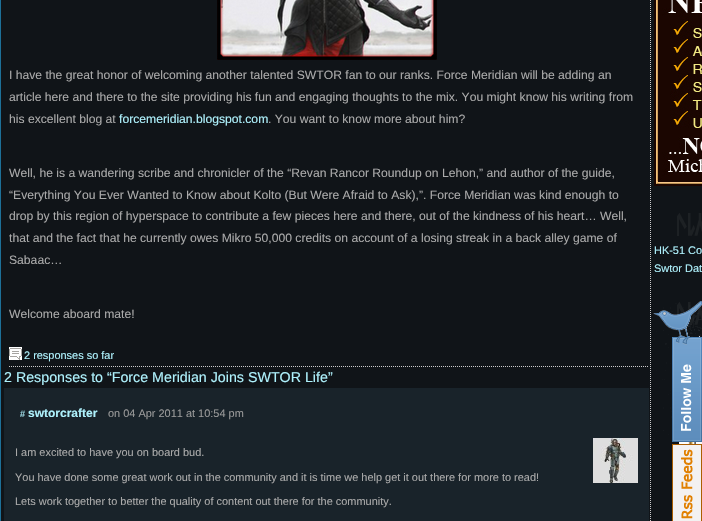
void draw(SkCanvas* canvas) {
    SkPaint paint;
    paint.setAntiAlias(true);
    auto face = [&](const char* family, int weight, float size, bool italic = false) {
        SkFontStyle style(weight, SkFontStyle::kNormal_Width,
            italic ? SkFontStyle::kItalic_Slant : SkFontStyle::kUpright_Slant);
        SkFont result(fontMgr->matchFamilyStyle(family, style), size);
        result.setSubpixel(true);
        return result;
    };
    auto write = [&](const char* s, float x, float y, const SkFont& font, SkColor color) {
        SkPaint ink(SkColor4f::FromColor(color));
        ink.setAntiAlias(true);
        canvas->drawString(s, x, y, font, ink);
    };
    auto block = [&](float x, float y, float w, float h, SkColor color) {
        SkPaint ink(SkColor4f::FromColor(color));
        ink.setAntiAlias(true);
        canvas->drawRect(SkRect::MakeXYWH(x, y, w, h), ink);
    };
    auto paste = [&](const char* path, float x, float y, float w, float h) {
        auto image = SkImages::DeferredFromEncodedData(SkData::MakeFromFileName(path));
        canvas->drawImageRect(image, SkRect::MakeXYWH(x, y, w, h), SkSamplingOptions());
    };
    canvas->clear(SkColorSetRGB(16, 20, 24));
    paint.setStyle(SkPaint::kStroke_Style);
    paint.setStrokeWidth(1);
    paint.setColor(SkColorSetRGB(29, 112, 152));
    canvas->drawRect(SkRect::MakeXYWH(0.5f, -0.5f, 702, 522), paint);
    paint.setColor(SkColorSetRGB(204, 204, 204));
    paint.setPathEffect(SkDashPathEffect::Make({{1, 1}}, 0));
    canvas->drawPath(SkPathBuilder().moveTo(650.5f, -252).lineTo(650.5f, 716).detach(), paint);
    paint.setPathEffect(nullptr);
    paste("pic1.png", 217, 0, 220, 60);
    auto kFont1 = face("Liberation Sans", 400, 12.15f);
    write("I have the great honor of welcoming another talented SWTOR fan to our ranks. Force Meridian will be adding an", 9, 79, kFont1, SkColorSetRGB(170, 170, 170));
    write("article here and there to the site providing his fun and engaging thoughts to the mix. You might know his writing from", 9, 101, kFont1, SkColorSetRGB(170, 170, 170));
    write("his excellent blog at", 9, 123, kFont1, SkColorSetRGB(170, 170, 170));
    write("forcemeridian.blogspot.com", 119, 123, kFont1, SkColorSetRGB(174, 241, 252));
    write(". You want to know more about him?", 268, 123, kFont1, SkColorSetRGB(170, 170, 170));
    write("Well, he is a wandering scribe and chronicler of the “Revan Rancor Roundup on Lehon,” and author of the guide,", 9, 177, kFont1, SkColorSetRGB(170, 170, 170));
    write("“Everything You Ever Wanted to Know about Kolto (But Were Afraid to Ask),”. Force Meridian was kind enough to", 9, 199, kFont1, SkColorSetRGB(170, 170, 170));
    write("drop by this region of hyperspace to contribute a few pieces here and there, out of the kindness of his heart… Well,", 9, 220, kFont1, SkColorSetRGB(170, 170, 170));
    write("that and the fact that he currently owes Mikro 50,000 credits on account of a losing streak in a back alley game of", 9, 242, kFont1, SkColorSetRGB(170, 170, 170));
    write("Sabaac…", 9, 264, kFont1, SkColorSetRGB(170, 170, 170));
    write("Welcome aboard mate!", 9, 318, kFont1, SkColorSetRGB(170, 170, 170));
    paste("pic2.png", 9, 347, 13, 13);
    paint.setPathEffect(SkDashPathEffect::Make({{1, 1}}, 0));
    canvas->drawPath(SkPathBuilder().moveTo(9, 366.5f).lineTo(649, 366.5f).detach(), paint);
    paint.setPathEffect(nullptr);
    auto kFont2 = face("Liberation Sans", 400, 10.95f);
    write("2 responses so far", 24, 359, kFont2, SkColorSetRGB(174, 241, 252));
    auto kFont3 = face("Liberation Sans", 400, 14.25f);
    write("2 Responses to “Force Meridian Joins SWTOR Life”", 4, 382, kFont3, SkColorSetRGB(174, 241, 252));
    block(4, 388, 645, 133, SkColorSetRGB(25, 35, 42));
    auto kFont4 = face("Liberation Sans", 400, 9);
    write("#", 20, 417, kFont4, SkColorSetRGB(174, 241, 252));
    auto kFont5 = face("Liberation Sans", 700, 12);
    write("swtorcrafter", 28, 417, kFont5, SkColorSetRGB(174, 241, 252));
    write("on 04 Apr 2011 at 10:54 pm", 108, 417, kFont2, SkColorSetRGB(153, 153, 153));
    write("I am excited to have you on board bud.", 15, 456, kFont2, SkColorSetRGB(170, 170, 170));
    paste("pic3.png", 593, 438, 45, 45);
    write("You have done some great work out in the community and it is time we help get it out there for more to read!", 15, 481, kFont2, SkColorSetRGB(170, 170, 170));
    write("Lets work together to better the quality of content out there for the community.", 15, 505, kFont2, SkColorSetRGB(170, 170, 170));
    paste("pic4.png", 654, 0, 48, 186);
    paste("pic5.png", 677, 213, 25, 23);
    write("HK-51 Co", 654, 254, kFont2, SkColorSetRGB(174, 241, 252));
    write("Swtor Dat", 654, 272, kFont2, SkColorSetRGB(174, 241, 252));
    paste("pic5.png", 677, 302, 25, 23);
    paste("pic6.png", 679, 442, 23, 2);
    paste("pic7.png", 653, 301, 49, 141);
    paste("pic8.png", 672, 444, 30, 77);
}
